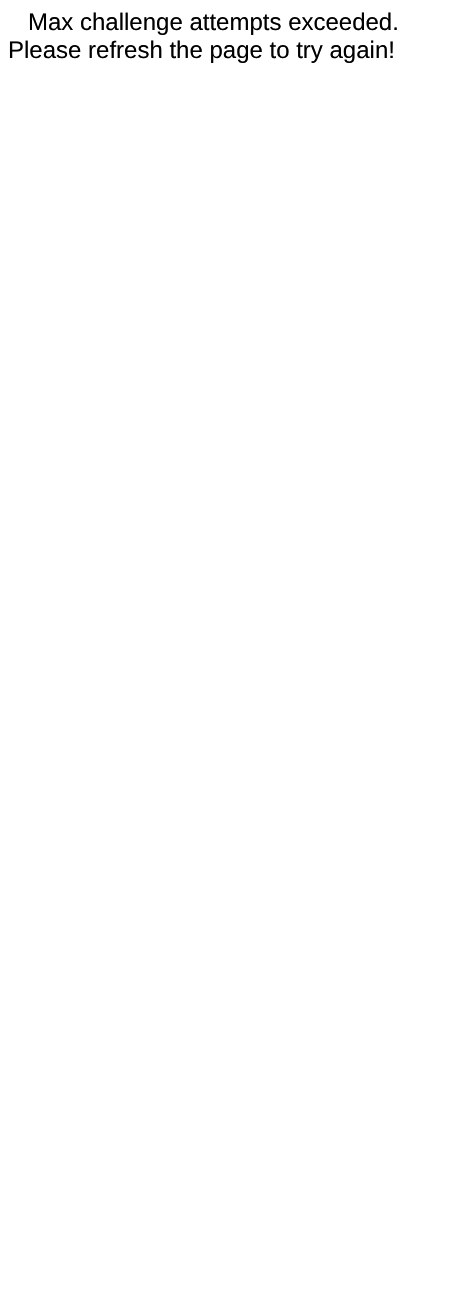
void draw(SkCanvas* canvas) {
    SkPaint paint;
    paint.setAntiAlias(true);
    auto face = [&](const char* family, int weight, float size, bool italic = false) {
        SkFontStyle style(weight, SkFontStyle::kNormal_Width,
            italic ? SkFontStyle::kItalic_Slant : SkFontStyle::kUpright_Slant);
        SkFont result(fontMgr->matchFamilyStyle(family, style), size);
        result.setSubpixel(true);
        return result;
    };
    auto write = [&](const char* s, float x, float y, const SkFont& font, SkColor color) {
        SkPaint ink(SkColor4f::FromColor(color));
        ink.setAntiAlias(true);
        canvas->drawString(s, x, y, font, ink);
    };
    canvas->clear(SK_ColorWHITE);
    auto kFont1 = face("Liberation Sans", 400, 24);
    write("Max challenge attempts exceeded.", 28, 30, kFont1, SK_ColorBLACK);
    write("Please refresh the page to try again!", 8, 58, kFont1, SK_ColorBLACK);
}
